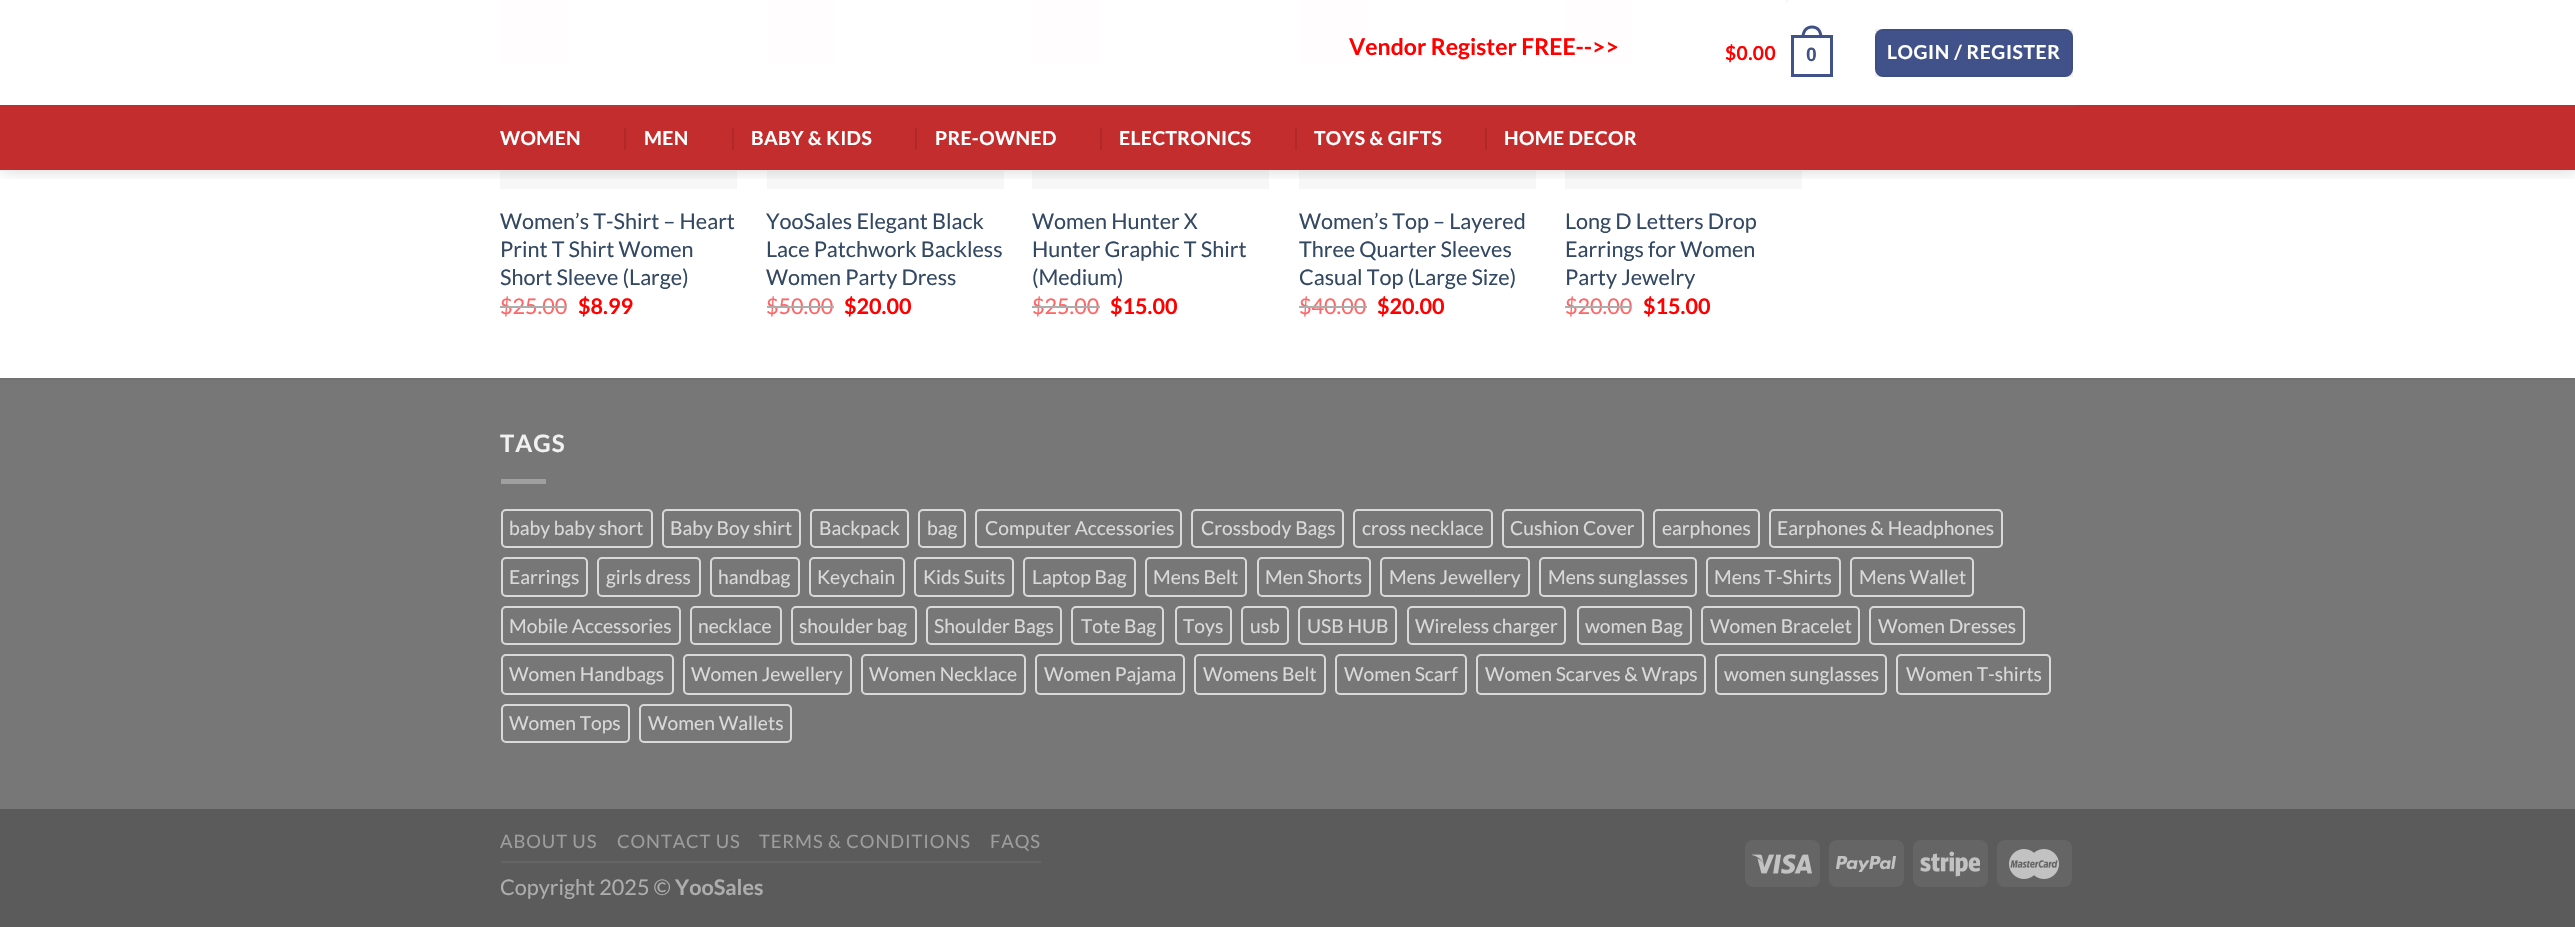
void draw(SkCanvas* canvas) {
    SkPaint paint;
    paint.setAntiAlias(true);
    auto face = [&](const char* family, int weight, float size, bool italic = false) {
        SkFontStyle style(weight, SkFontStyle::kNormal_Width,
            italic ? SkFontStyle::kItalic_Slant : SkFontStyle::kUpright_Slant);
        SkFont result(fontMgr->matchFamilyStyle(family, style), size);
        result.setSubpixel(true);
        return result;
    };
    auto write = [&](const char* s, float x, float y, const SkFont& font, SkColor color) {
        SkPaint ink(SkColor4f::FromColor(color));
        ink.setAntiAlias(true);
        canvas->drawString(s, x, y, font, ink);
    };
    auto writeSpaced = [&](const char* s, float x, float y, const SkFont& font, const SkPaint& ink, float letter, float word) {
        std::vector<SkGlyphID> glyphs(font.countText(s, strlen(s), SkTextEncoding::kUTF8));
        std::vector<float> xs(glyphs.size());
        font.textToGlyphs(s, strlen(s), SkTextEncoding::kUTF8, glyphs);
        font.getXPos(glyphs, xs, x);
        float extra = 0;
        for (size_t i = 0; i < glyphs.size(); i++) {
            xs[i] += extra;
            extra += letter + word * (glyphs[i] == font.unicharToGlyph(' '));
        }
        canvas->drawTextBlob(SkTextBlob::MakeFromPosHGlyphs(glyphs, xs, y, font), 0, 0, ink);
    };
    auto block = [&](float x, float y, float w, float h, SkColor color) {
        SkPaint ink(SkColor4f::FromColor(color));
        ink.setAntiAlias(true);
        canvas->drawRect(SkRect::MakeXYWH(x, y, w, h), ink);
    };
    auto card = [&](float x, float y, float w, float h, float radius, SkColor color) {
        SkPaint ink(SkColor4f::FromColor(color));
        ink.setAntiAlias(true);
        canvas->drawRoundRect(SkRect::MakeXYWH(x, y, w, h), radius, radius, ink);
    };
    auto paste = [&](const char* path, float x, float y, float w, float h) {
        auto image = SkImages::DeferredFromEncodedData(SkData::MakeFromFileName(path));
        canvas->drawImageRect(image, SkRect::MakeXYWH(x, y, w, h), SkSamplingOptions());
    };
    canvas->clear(SK_ColorWHITE);
    block(500, 0, 237, 189, SkColorSetRGB(247, 247, 247));
    block(500, 47, 237, 58, SkColorSetRGB(253, 253, 253));
    block(500, 0, 67, 63, SkColorSetRGB(221, 51, 51));
    paint.setStyle(SkPaint::kStroke_Style);
    paint.setStrokeWidth(3);
    paint.setColor(SkColorSetRGB(192, 192, 192));
    canvas->drawRoundRect(SkRect::MakeXYWH(682.5f, -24.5f, 44, 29), 21.5f, 21.5f, paint);
    block(767, 0, 237, 189, SkColorSetRGB(247, 247, 247));
    block(767, 47, 237, 58, SkColorSetRGB(253, 253, 253));
    block(767, 0, 67, 63, SkColorSetRGB(221, 51, 51));
    canvas->drawRoundRect(SkRect::MakeXYWH(948.5f, -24.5f, 43, 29), 21.5f, 21.5f, paint);
    block(1032, 0, 237, 189, SkColorSetRGB(247, 247, 247));
    block(1032, 0, 68, 63, SkColorSetRGB(221, 51, 51));
    canvas->drawRoundRect(SkRect::MakeXYWH(1215.5f, -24.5f, 43, 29), 21.5f, 21.5f, paint);
    block(1299, 0, 237, 189, SkColorSetRGB(247, 247, 247));
    block(1299, 0, 68, 63, SkColorSetRGB(221, 51, 51));
    canvas->drawRoundRect(SkRect::MakeXYWH(1480.5f, -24.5f, 44, 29), 21.5f, 21.5f, paint);
    block(1565, 0, 237, 189, SkColorSetRGB(247, 247, 247));
    block(1565, 0, 67, 63, SkColorSetRGB(221, 51, 51));
    canvas->drawRoundRect(SkRect::MakeXYWH(1747.5f, -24.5f, 44, 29), 21.5f, 21.5f, paint);
    canvas->save();
    canvas->clipRect(SkRect::MakeXYWH(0, 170, 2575, 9));
    paint.setStyle(SkPaint::kFill_Style);
    paint.setColor(SkColorSetARGB(38, 0, 0, 0));
    paint.setMaskFilter(SkMaskFilter::MakeBlur(kNormal_SkBlurStyle, 7.5f));
    canvas->drawRect(SkRect::MakeXYWH(2, 2, 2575, 169), paint);
    paint.setMaskFilter(nullptr);
    canvas->restore();
    block(500, 0, 1302, 105, SkColorSetARGB(230, 255, 255, 255));
    block(500, 0, 1285, 63, SkColorSetARGB(230, 255, 255, 255));
    auto kFont1 = face("Lato", 700, 23);
    write("Vendor Register FREE-->>", 1349, 55, kFont1, SkColorSetRGB(255, 0, 0));
    auto kFont2 = face("Lato", 700, 19.25f);
    paint.setColor(SkColorSetRGB(255, 0, 0));
    writeSpaced("$0.00", 1725, 60, kFont2, paint, 0.4f, 0);
    paint.setStyle(SkPaint::kStroke_Style);
    paint.setColor(SkColorSetRGB(65, 82, 138));
    canvas->drawRect(SkRect::MakeXYWH(1792.5f, 36.5f, 39, 39), paint);
    paint.setStyle(SkPaint::kFill_Style);
    canvas->drawPath(SkPathBuilder(SkPathFillType::kEvenOdd).moveTo(1812, 25.5f).cubicTo(1819, 25.5f, 1822.5f, 31, 1822.5f, 37.5f).lineTo(1801.5f, 37.5f).cubicTo(1801.5f, 31, 1805, 25.5f, 1812, 25.5f).close().moveTo(1812, 28.5f).cubicTo(1817.5f, 28.5f, 1819.5f, 33, 1819.5f, 37.5f).lineTo(1804.5f, 37.5f).cubicTo(1804.5f, 33, 1806.5f, 28.5f, 1812, 28.5f).close().detach(), paint);
    auto kFont3 = face("Liberation Sans", 700, 19.25f);
    writeSpaced("0", 1806, 61, kFont3, paint, 0.4f, 0);
    card(1875, 29, 198, 48, 8, SkColorSetRGB(65, 82, 138));
    paint.setStyle(SkPaint::kStroke_Style);
    paint.setStrokeWidth(2);
    paint.setColor(SkColorSetARGB(13, 0, 0, 0));
    canvas->drawRect(SkRect::MakeXYWH(1876, 30, 196, 46), paint);
    paint.setStyle(SkPaint::kFill_Style);
    paint.setColor(SK_ColorWHITE);
    writeSpaced("LOGIN / REGISTER", 1887, 59, kFont2, paint, 0.6f, 0);
    block(0, 105, 2575, 65, SkColorSetRGB(196, 45, 45));
    block(501, 105, 1575, 2, SkColorSetRGB(188, 52, 52));
    writeSpaced("WOMEN", 500, 145, kFont2, paint, 0.4f, 0);
    block(624, 128, 2, 22, SkColorSetRGB(176, 41, 41));
    writeSpaced("MEN", 644, 145, kFont2, paint, 0.4f, 0);
    block(732, 128, 2, 22, SkColorSetRGB(176, 41, 41));
    writeSpaced("BABY & KIDS", 751, 145, kFont2, paint, 0.4f, 0);
    block(915, 128, 2, 22, SkColorSetRGB(176, 41, 41));
    writeSpaced("PRE-OWNED", 935, 145, kFont2, paint, 0.4f, 0);
    block(1100, 128, 2, 22, SkColorSetRGB(176, 41, 41));
    writeSpaced("ELECTRONICS", 1119, 145, kFont2, paint, 0.4f, 0);
    block(1295, 128, 2, 22, SkColorSetRGB(176, 41, 41));
    writeSpaced("TOYS & GIFTS", 1314, 145, kFont2, paint, 0.4f, 0);
    block(1485, 128, 2, 22, SkColorSetRGB(176, 41, 41));
    writeSpaced("HOME DECOR", 1504, 145, kFont2, paint, 0.4f, 0);
    auto kFont4 = face("Lato", 400, 21.6f);
    write("Women’s T-Shirt – Heart", 500, 229, kFont4, SkColorSetRGB(51, 72, 98));
    write("Print T Shirt Women", 500, 257, kFont4, SkColorSetRGB(51, 72, 98));
    write("Short Sleeve (Large)", 500, 285, kFont4, SkColorSetRGB(51, 72, 98));
    write("$25.00", 500, 314, kFont4, SkColorSetRGB(255, 102, 102));
    block(500, 306, 67, 2, SkColorSetRGB(173, 173, 173));
    auto kFont5 = face("Lato", 700, 21.6f);
    write("$8.99", 578, 314, kFont5, SkColorSetRGB(255, 0, 0));
    write("YooSales Elegant Black", 766, 229, kFont4, SkColorSetRGB(51, 72, 98));
    write("Lace Patchwork Backless", 766, 257, kFont4, SkColorSetRGB(51, 72, 98));
    write("Women Party Dress", 766, 285, kFont4, SkColorSetRGB(51, 72, 98));
    write("$50.00", 766, 314, kFont4, SkColorSetRGB(255, 102, 102));
    block(767, 306, 67, 2, SkColorSetRGB(173, 173, 173));
    write("$20.00", 844, 314, kFont5, SkColorSetRGB(255, 0, 0));
    write("Women Hunter X", 1032, 229, kFont4, SkColorSetRGB(51, 72, 98));
    write("Hunter Graphic T Shirt", 1032, 257, kFont4, SkColorSetRGB(51, 72, 98));
    write("(Medium)", 1032, 285, kFont4, SkColorSetRGB(51, 72, 98));
    write("$25.00", 1032, 314, kFont4, SkColorSetRGB(255, 102, 102));
    block(1032, 306, 68, 2, SkColorSetRGB(173, 173, 173));
    write("$15.00", 1110, 314, kFont5, SkColorSetRGB(255, 0, 0));
    write("Women’s Top – Layered", 1299, 229, kFont4, SkColorSetRGB(51, 72, 98));
    write("Three Quarter Sleeves", 1299, 257, kFont4, SkColorSetRGB(51, 72, 98));
    write("Casual Top (Large Size)", 1299, 285, kFont4, SkColorSetRGB(51, 72, 98));
    write("$40.00", 1299, 314, kFont4, SkColorSetRGB(255, 102, 102));
    block(1299, 306, 68, 2, SkColorSetRGB(173, 173, 173));
    write("$20.00", 1377, 314, kFont5, SkColorSetRGB(255, 0, 0));
    write("Long D Letters Drop", 1565, 229, kFont4, SkColorSetRGB(51, 72, 98));
    write("Earrings for Women", 1565, 257, kFont4, SkColorSetRGB(51, 72, 98));
    write("Party Jewelry", 1565, 285, kFont4, SkColorSetRGB(51, 72, 98));
    write("$20.00", 1565, 314, kFont4, SkColorSetRGB(255, 102, 102));
    block(1565, 306, 67, 2, SkColorSetRGB(173, 173, 173));
    write("$15.00", 1643, 314, kFont5, SkColorSetRGB(255, 0, 0));
    block(0, 380, 2575, 429, SkColorSetRGB(119, 119, 119));
    block(0, 378, 2575, 2, SkColorSetRGB(113, 113, 113));
    auto kFont6 = face("Lato", 700, 24);
    paint.setColor(SkColorSetRGB(241, 241, 241));
    writeSpaced("TAGS", 500, 452, kFont6, paint, 1, 0);
    block(501, 479, 45, 5, SkColorSetRGB(160, 160, 160));
    paint.setStyle(SkPaint::kStroke_Style);
    paint.setColor(SkColorSetRGB(217, 217, 217));
    canvas->drawRoundRect(SkRect::MakeXYWH(502, 510, 150, 37), 4, 4, paint);
    auto kFont7 = face("Lato", 400, 19.25f);
    write("baby baby short", 509, 535, kFont7, SkColorSetRGB(217, 217, 217));
    canvas->drawRoundRect(SkRect::MakeXYWH(663, 510, 137, 37), 4, 4, paint);
    write("Baby Boy shirt", 670, 535, kFont7, SkColorSetRGB(217, 217, 217));
    canvas->drawRoundRect(SkRect::MakeXYWH(811, 510, 97, 37), 4, 4, paint);
    write("Backpack", 819, 535, kFont7, SkColorSetRGB(217, 217, 217));
    canvas->drawRoundRect(SkRect::MakeXYWH(919, 510, 46, 37), 4, 4, paint);
    write("bag", 927, 535, kFont7, SkColorSetRGB(217, 217, 217));
    canvas->drawRoundRect(SkRect::MakeXYWH(976, 510, 205, 37), 4, 4, paint);
    write("Computer Accessories", 985, 535, kFont7, SkColorSetRGB(217, 217, 217));
    canvas->drawRoundRect(SkRect::MakeXYWH(1192, 510, 151, 37), 4, 4, paint);
    write("Crossbody Bags", 1201, 535, kFont7, SkColorSetRGB(217, 217, 217));
    canvas->drawRoundRect(SkRect::MakeXYWH(1354, 510, 138, 37), 4, 4, paint);
    write("cross necklace", 1362, 535, kFont7, SkColorSetRGB(217, 217, 217));
    canvas->drawRoundRect(SkRect::MakeXYWH(1503, 510, 140, 37), 4, 4, paint);
    write("Cushion Cover", 1510, 535, kFont7, SkColorSetRGB(217, 217, 217));
    canvas->drawRoundRect(SkRect::MakeXYWH(1654, 510, 105, 37), 4, 4, paint);
    write("earphones", 1662, 535, kFont7, SkColorSetRGB(217, 217, 217));
    canvas->drawRoundRect(SkRect::MakeXYWH(1770, 510, 232, 37), 4, 4, paint);
    write("Earphones & Headphones", 1777, 535, kFont7, SkColorSetRGB(217, 217, 217));
    canvas->drawRoundRect(SkRect::MakeXYWH(502, 558, 85, 38), 4, 4, paint);
    write("Earrings", 509, 584, kFont7, SkColorSetRGB(217, 217, 217));
    canvas->drawRoundRect(SkRect::MakeXYWH(598, 558, 102, 38), 4, 4, paint);
    write("girls dress", 606, 584, kFont7, SkColorSetRGB(217, 217, 217));
    canvas->drawRoundRect(SkRect::MakeXYWH(711, 558, 88, 38), 4, 4, paint);
    write("handbag", 718, 584, kFont7, SkColorSetRGB(217, 217, 217));
    canvas->drawRoundRect(SkRect::MakeXYWH(810, 558, 94, 38), 4, 4, paint);
    write("Keychain", 817, 584, kFont7, SkColorSetRGB(217, 217, 217));
    canvas->drawRoundRect(SkRect::MakeXYWH(915, 558, 98, 38), 4, 4, paint);
    write("Kids Suits", 923, 584, kFont7, SkColorSetRGB(217, 217, 217));
    canvas->drawRoundRect(SkRect::MakeXYWH(1024, 558, 111, 38), 4, 4, paint);
    write("Laptop Bag", 1032, 584, kFont7, SkColorSetRGB(217, 217, 217));
    canvas->drawRoundRect(SkRect::MakeXYWH(1146, 558, 100, 38), 4, 4, paint);
    write("Mens Belt", 1153, 584, kFont7, SkColorSetRGB(217, 217, 217));
    canvas->drawRoundRect(SkRect::MakeXYWH(1258, 558, 112, 38), 4, 4, paint);
    write("Men Shorts", 1265, 584, kFont7, SkColorSetRGB(217, 217, 217));
    canvas->drawRoundRect(SkRect::MakeXYWH(1381, 558, 148, 38), 4, 4, paint);
    write("Mens Jewellery", 1389, 584, kFont7, SkColorSetRGB(217, 217, 217));
    canvas->drawRoundRect(SkRect::MakeXYWH(1540, 558, 156, 38), 4, 4, paint);
    write("Mens sunglasses", 1548, 584, kFont7, SkColorSetRGB(217, 217, 217));
    canvas->drawRoundRect(SkRect::MakeXYWH(1707, 558, 133, 38), 4, 4, paint);
    write("Mens T-Shirts", 1714, 584, kFont7, SkColorSetRGB(217, 217, 217));
    canvas->drawRoundRect(SkRect::MakeXYWH(1851, 558, 122, 38), 4, 4, paint);
    write("Mens Wallet", 1859, 584, kFont7, SkColorSetRGB(217, 217, 217));
    canvas->drawRoundRect(SkRect::MakeXYWH(502, 607, 178, 37), 4, 4, paint);
    write("Mobile Accessories", 509, 633, kFont7, SkColorSetRGB(217, 217, 217));
    canvas->drawRoundRect(SkRect::MakeXYWH(691, 607, 90, 37), 4, 4, paint);
    write("necklace", 698, 633, kFont7, SkColorSetRGB(217, 217, 217));
    canvas->drawRoundRect(SkRect::MakeXYWH(792, 607, 124, 37), 4, 4, paint);
    write("shoulder bag", 799, 633, kFont7, SkColorSetRGB(217, 217, 217));
    canvas->drawRoundRect(SkRect::MakeXYWH(927, 607, 134, 37), 4, 4, paint);
    write("Shoulder Bags", 934, 633, kFont7, SkColorSetRGB(217, 217, 217));
    canvas->drawRoundRect(SkRect::MakeXYWH(1072, 607, 91, 37), 4, 4, paint);
    write("Tote Bag", 1081, 633, kFont7, SkColorSetRGB(217, 217, 217));
    canvas->drawRoundRect(SkRect::MakeXYWH(1176, 607, 55, 37), 4, 4, paint);
    write("Toys", 1183, 633, kFont7, SkColorSetRGB(217, 217, 217));
    canvas->drawRoundRect(SkRect::MakeXYWH(1242, 607, 46, 37), 4, 4, paint);
    write("usb", 1250, 633, kFont7, SkColorSetRGB(217, 217, 217));
    canvas->drawRoundRect(SkRect::MakeXYWH(1299, 607, 97, 37), 4, 4, paint);
    write("USB HUB", 1307, 633, kFont7, SkColorSetRGB(217, 217, 217));
    canvas->drawRoundRect(SkRect::MakeXYWH(1408, 607, 157, 37), 4, 4, paint);
    write("Wireless charger", 1415, 633, kFont7, SkColorSetRGB(217, 217, 217));
    canvas->drawRoundRect(SkRect::MakeXYWH(1578, 607, 113, 37), 4, 4, paint);
    write("women Bag", 1585, 633, kFont7, SkColorSetRGB(217, 217, 217));
    canvas->drawRoundRect(SkRect::MakeXYWH(1702, 607, 157, 37), 4, 4, paint);
    write("Women Bracelet", 1710, 633, kFont7, SkColorSetRGB(217, 217, 217));
    canvas->drawRoundRect(SkRect::MakeXYWH(1870, 607, 154, 37), 4, 4, paint);
    write("Women Dresses", 1878, 633, kFont7, SkColorSetRGB(217, 217, 217));
    canvas->drawRoundRect(SkRect::MakeXYWH(502, 655, 171, 39), 4, 4, paint);
    write("Women Handbags", 509, 681, kFont7, SkColorSetRGB(217, 217, 217));
    canvas->drawRoundRect(SkRect::MakeXYWH(684, 655, 167, 39), 4, 4, paint);
    write("Women Jewellery", 691, 681, kFont7, SkColorSetRGB(217, 217, 217));
    canvas->drawRoundRect(SkRect::MakeXYWH(862, 655, 163, 39), 4, 4, paint);
    write("Women Necklace", 869, 681, kFont7, SkColorSetRGB(217, 217, 217));
    canvas->drawRoundRect(SkRect::MakeXYWH(1036, 655, 148, 39), 4, 4, paint);
    write("Women Pajama", 1044, 681, kFont7, SkColorSetRGB(217, 217, 217));
    canvas->drawRoundRect(SkRect::MakeXYWH(1195, 655, 130, 39), 4, 4, paint);
    write("Womens Belt", 1203, 681, kFont7, SkColorSetRGB(217, 217, 217));
    canvas->drawRoundRect(SkRect::MakeXYWH(1336, 655, 130, 39), 4, 4, paint);
    write("Women Scarf", 1344, 681, kFont7, SkColorSetRGB(217, 217, 217));
    canvas->drawRoundRect(SkRect::MakeXYWH(1477, 655, 228, 39), 4, 4, paint);
    write("Women Scarves & Wraps", 1485, 681, kFont7, SkColorSetRGB(217, 217, 217));
    canvas->drawRoundRect(SkRect::MakeXYWH(1716, 655, 170, 39), 4, 4, paint);
    write("women sunglasses", 1724, 681, kFont7, SkColorSetRGB(217, 217, 217));
    canvas->drawRoundRect(SkRect::MakeXYWH(1897, 655, 153, 39), 4, 4, paint);
    write("Women T-shirts", 1906, 681, kFont7, SkColorSetRGB(217, 217, 217));
    canvas->drawRoundRect(SkRect::MakeXYWH(502, 705, 127, 37), 4, 4, paint);
    write("Women Tops", 509, 730, kFont7, SkColorSetRGB(217, 217, 217));
    canvas->drawRoundRect(SkRect::MakeXYWH(640, 705, 151, 37), 4, 4, paint);
    write("Women Wallets", 648, 730, kFont7, SkColorSetRGB(217, 217, 217));
    block(0, 809, 2575, 118, SkColorSetRGB(91, 91, 91));
    block(501, 861, 540, 2, SkColorSetRGB(101, 101, 101));
    auto kFont8 = face("Lato", 400, 18.4f);
    paint.setStyle(SkPaint::kFill_Style);
    paint.setColor(SkColorSetRGB(157, 157, 157));
    writeSpaced("ABOUT US", 500, 848, kFont8, paint, 0.9f, 0);
    writeSpaced("CONTACT US", 617, 848, kFont8, paint, 0.9f, 0);
    writeSpaced("TERMS & CONDITIONS", 759, 848, kFont8, paint, 0.9f, 0);
    writeSpaced("FAQS", 990, 848, kFont8, paint, 0.9f, 0);
    write("Copyright 2025 ©", 500, 895, kFont4, SkColorSetRGB(173, 173, 173));
    write("YooSales", 675, 895, kFont5, SkColorSetRGB(173, 173, 173));
    card(1745, 840, 75, 47, 8, SkColorSetRGB(101, 101, 101));
    paste("pic1.png", 1752, 854, 60, 20);
    card(1829, 840, 75, 47, 8, SkColorSetRGB(101, 101, 101));
    paste("pic2.png", 1836, 856, 60, 16);
    card(1913, 840, 75, 47, 8, SkColorSetRGB(101, 101, 101));
    paste("pic3.png", 1920, 851, 60, 26);
    card(1997, 840, 75, 47, 8, SkColorSetRGB(101, 101, 101));
    paste("pic4.png", 2009, 849, 50, 30);
}
